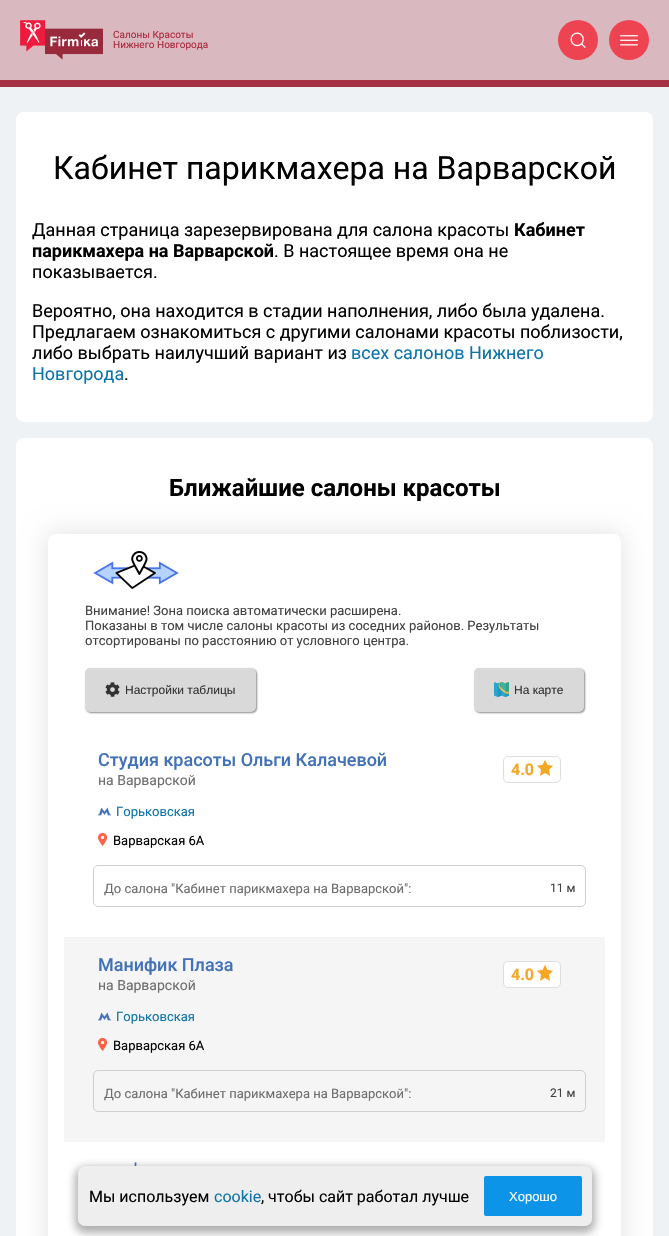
void draw(SkCanvas* canvas) {
    SkPaint paint;
    paint.setAntiAlias(true);
    auto face = [&](const char* family, int weight, float size, bool italic = false) {
        SkFontStyle style(weight, SkFontStyle::kNormal_Width,
            italic ? SkFontStyle::kItalic_Slant : SkFontStyle::kUpright_Slant);
        SkFont result(fontMgr->matchFamilyStyle(family, style), size);
        result.setSubpixel(true);
        return result;
    };
    auto write = [&](const char* s, float x, float y, const SkFont& font, SkColor color) {
        SkPaint ink(SkColor4f::FromColor(color));
        ink.setAntiAlias(true);
        canvas->drawString(s, x, y, font, ink);
    };
    auto block = [&](float x, float y, float w, float h, SkColor color) {
        SkPaint ink(SkColor4f::FromColor(color));
        ink.setAntiAlias(true);
        canvas->drawRect(SkRect::MakeXYWH(x, y, w, h), ink);
    };
    auto card = [&](float x, float y, float w, float h, float radius, SkColor color) {
        SkPaint ink(SkColor4f::FromColor(color));
        ink.setAntiAlias(true);
        canvas->drawRoundRect(SkRect::MakeXYWH(x, y, w, h), radius, radius, ink);
    };
    auto paste = [&](const char* path, float x, float y, float w, float h) {
        auto image = SkImages::DeferredFromEncodedData(SkData::MakeFromFileName(path));
        canvas->drawImageRect(image, SkRect::MakeXYWH(x, y, w, h), SkSamplingOptions());
    };
    canvas->clear(SkColorSetRGB(239, 242, 244));
    block(0, 0, 669, 80, SkColorSetRGB(217, 184, 192));
    paste("pic1.png", 20, 20, 83, 40);
    auto kFont1 = face("Roboto", 400, 10);
    write("Салоны Красоты", 113, 38, kFont1, SkColorSetRGB(171, 38, 60));
    write("Нижнего Новгорода", 113, 48, kFont1, SkColorSetRGB(171, 38, 60));
    paint.setColor(SkColorSetRGB(238, 68, 82));
    canvas->drawCircle(578, 40, 20, paint);
    paste("pic2.png", 570, 32, 16, 16);
    canvas->drawCircle(629, 40, 20, paint);
    paste("pic3.png", 620, 35, 18, 11);
    block(0, 80, 669, 7, SkColorSetRGB(165, 49, 69));
    card(16, 112, 637, 310, 8, SK_ColorWHITE);
    auto kFont2 = face("Roboto", 400, 32);
    write("Кабинет парикмахера на Варварской", 53, 179, kFont2, SK_ColorBLACK);
    auto kFont3 = face("Roboto", 400, 18);
    write("Данная страница зарезервирована для салона красоты", 32, 236, kFont3, SK_ColorBLACK);
    auto kFont4 = face("Roboto", 700, 18);
    write("Кабинет", 514, 236, kFont4, SK_ColorBLACK);
    write("парикмахера на Варварской", 32, 257, kFont4, SK_ColorBLACK);
    write(". В настоящее время она не", 274, 257, kFont3, SK_ColorBLACK);
    write("показывается.", 32, 278, kFont3, SK_ColorBLACK);
    write("Вероятно, она находится в стадии наполнения, либо была удалена.", 32, 317, kFont3, SK_ColorBLACK);
    write("Предлагаем ознакомиться с другими салонами красоты поблизости,", 32, 338, kFont3, SK_ColorBLACK);
    write("либо выбрать наилучший вариант из", 32, 359, kFont3, SK_ColorBLACK);
    write("всех салонов Нижнего", 351, 359, kFont3, SkColorSetRGB(12, 116, 169));
    write("Новгорода", 32, 380, kFont3, SkColorSetRGB(12, 116, 169));
    write(".", 124, 380, kFont3, SK_ColorBLACK);
    card(16, 438, 637, 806, 8, SK_ColorWHITE);
    paint.setColor(SkColorSetARGB(26, 0, 0, 0));
    paint.setMaskFilter(SkMaskFilter::MakeBlur(kNormal_SkBlurStyle, 12));
    canvas->drawRoundRect(SkRect::MakeXYWH(46, 532, 577, 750), 10, 10, paint);
    paint.setMaskFilter(nullptr);
    auto kFont5 = face("Roboto", 700, 24);
    write("Ближайшие салоны красоты", 169, 496, kFont5, SK_ColorBLACK);
    card(48, 534, 573, 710, 8, SK_ColorWHITE);
    paste("pic4.png", 93, 551, 86, 38);
    auto kFont6 = face("Roboto", 400, 13);
    write("Внимание! Зона поиска автоматически расширена.", 85, 615, kFont6, SkColorSetRGB(64, 64, 64));
    write("Показаны в том числе салоны красоты из соседних районов. Результаты", 85, 630, kFont6, SkColorSetRGB(64, 64, 64));
    write("отсортированы по расстоянию от условного центра.", 85, 645, kFont6, SkColorSetRGB(64, 64, 64));
    paint.setColor(SkColorSetARGB(128, 20, 20, 20));
    paint.setMaskFilter(SkMaskFilter::MakeBlur(kNormal_SkBlurStyle, 1));
    canvas->drawRoundRect(SkRect::MakeXYWH(86, 669, 171, 44), 5, 5, paint);
    paint.setMaskFilter(nullptr);
    card(85, 668, 171, 44, 5, SkColorSetRGB(217, 217, 217));
    paste("pic5.png", 105, 682, 15, 15);
    auto kFont7 = face("Liberation Sans", 400, 12);
    write("Настройки таблицы", 125, 694, kFont7, SkColorSetRGB(51, 51, 51));
    paint.setMaskFilter(SkMaskFilter::MakeBlur(kNormal_SkBlurStyle, 1));
    canvas->drawRoundRect(SkRect::MakeXYWH(475, 669, 110, 44), 5, 5, paint);
    paint.setMaskFilter(nullptr);
    card(474, 668, 110, 44, 5, SkColorSetRGB(217, 217, 217));
    paste("pic6.png", 494, 682, 15, 15);
    write("На карте", 514, 694, kFont7, SkColorSetRGB(51, 51, 51));
    auto kFont8 = face("Roboto", 500, 18);
    write("Студия красоты Ольги Калачевой", 98, 766, kFont8, SkColorSetRGB(65, 113, 183));
    auto kFont9 = face("Roboto", 400, 14);
    write("на Варварской", 98, 785, kFont9, SkColorSetRGB(110, 109, 109));
    paint.setStyle(SkPaint::kStroke_Style);
    paint.setStrokeWidth(1);
    paint.setColor(SkColorSetRGB(222, 222, 222));
    canvas->drawRoundRect(SkRect::MakeXYWH(503.5f, 756.5f, 57, 26), 4.5f, 4.5f, paint);
    auto kFont10 = face("Roboto", 700, 16);
    write("4.0", 511, 775, kFont10, SkColorSetRGB(245, 166, 35));
    paste("pic7.png", 537, 760, 16, 16);
    paste("pic8.png", 98, 807, 13, 9);
    write("Горьковская", 116, 816, kFont6, SkColorSetRGB(12, 116, 169));
    paste("pic9.png", 98, 832, 10, 14);
    write("Варварская 6А", 113, 845, kFont6, SK_ColorBLACK);
    paint.setColor(SkColorSetRGB(207, 207, 207));
    canvas->drawRoundRect(SkRect::MakeXYWH(93.5f, 865.5f, 492, 41), 4.5f, 4.5f, paint);
    write("До салона \"Кабинет парикмахера на Варварской\":", 104, 893, kFont6, SkColorSetRGB(110, 109, 109));
    auto kFont11 = face("Roboto", 400, 12);
    write("11 м", 550, 892, kFont11, SkColorSetRGB(64, 64, 64));
    block(64, 937, 541, 205, SkColorSetRGB(246, 245, 245));
    write("Манифик Плаза", 98, 971, kFont8, SkColorSetRGB(65, 113, 183));
    write("на Варварской", 98, 990, kFont9, SkColorSetRGB(110, 109, 109));
    paint.setStyle(SkPaint::kFill_Style);
    paint.setColor(SK_ColorWHITE);
    canvas->drawRoundRect(SkRect::MakeXYWH(503.5f, 961.5f, 57, 26), 4.5f, 4.5f, paint);
    paint.setStyle(SkPaint::kStroke_Style);
    paint.setColor(SkColorSetRGB(222, 222, 222));
    canvas->drawRoundRect(SkRect::MakeXYWH(503.5f, 961.5f, 57, 26), 4.5f, 4.5f, paint);
    write("4.0", 511, 980, kFont10, SkColorSetRGB(245, 166, 35));
    paste("pic7.png", 537, 965, 16, 16);
    paste("pic10.png", 98, 1012, 13, 9);
    write("Горьковская", 116, 1021, kFont6, SkColorSetRGB(12, 116, 169));
    paste("pic11.png", 98, 1037, 10, 14);
    write("Варварская 6А", 113, 1050, kFont6, SK_ColorBLACK);
    paint.setColor(SkColorSetRGB(207, 207, 207));
    canvas->drawRoundRect(SkRect::MakeXYWH(93.5f, 1070.5f, 492, 41), 4.5f, 4.5f, paint);
    write("До салона \"Кабинет парикмахера на Варварской\":", 104, 1098, kFont6, SkColorSetRGB(110, 109, 109));
    write("21 м", 550, 1097, kFont11, SkColorSetRGB(64, 64, 64));
    write("'", 134, 1176, kFont8, SkColorSetRGB(65, 113, 183));
    paint.setStyle(SkPaint::kFill_Style);
    paint.setColor(SkColorSetARGB(107, 64, 64, 64));
    paint.setMaskFilter(SkMaskFilter::MakeBlur(kNormal_SkBlurStyle, 4));
    canvas->drawRoundRect(SkRect::MakeXYWH(75, 1167, 520, 66), 10, 10, paint);
    paint.setMaskFilter(nullptr);
    card(78, 1166, 514, 60, 7, SkColorSetRGB(238, 238, 238));
    auto kFont12 = face("Roboto", 400, 16);
    write("Мы используем", 89, 1202, kFont12, SK_ColorBLACK);
    write("cookie", 214, 1202, kFont12, SkColorSetRGB(12, 116, 169));
    write(", чтобы сайт работал лучше", 261, 1202, kFont12, SK_ColorBLACK);
    card(484, 1176, 98, 40, 2, SkColorSetRGB(12, 148, 232));
    auto kFont13 = face("Liberation Sans", 400, 13);
    write("Хорошо", 509, 1201, kFont13, SK_ColorWHITE);
}
